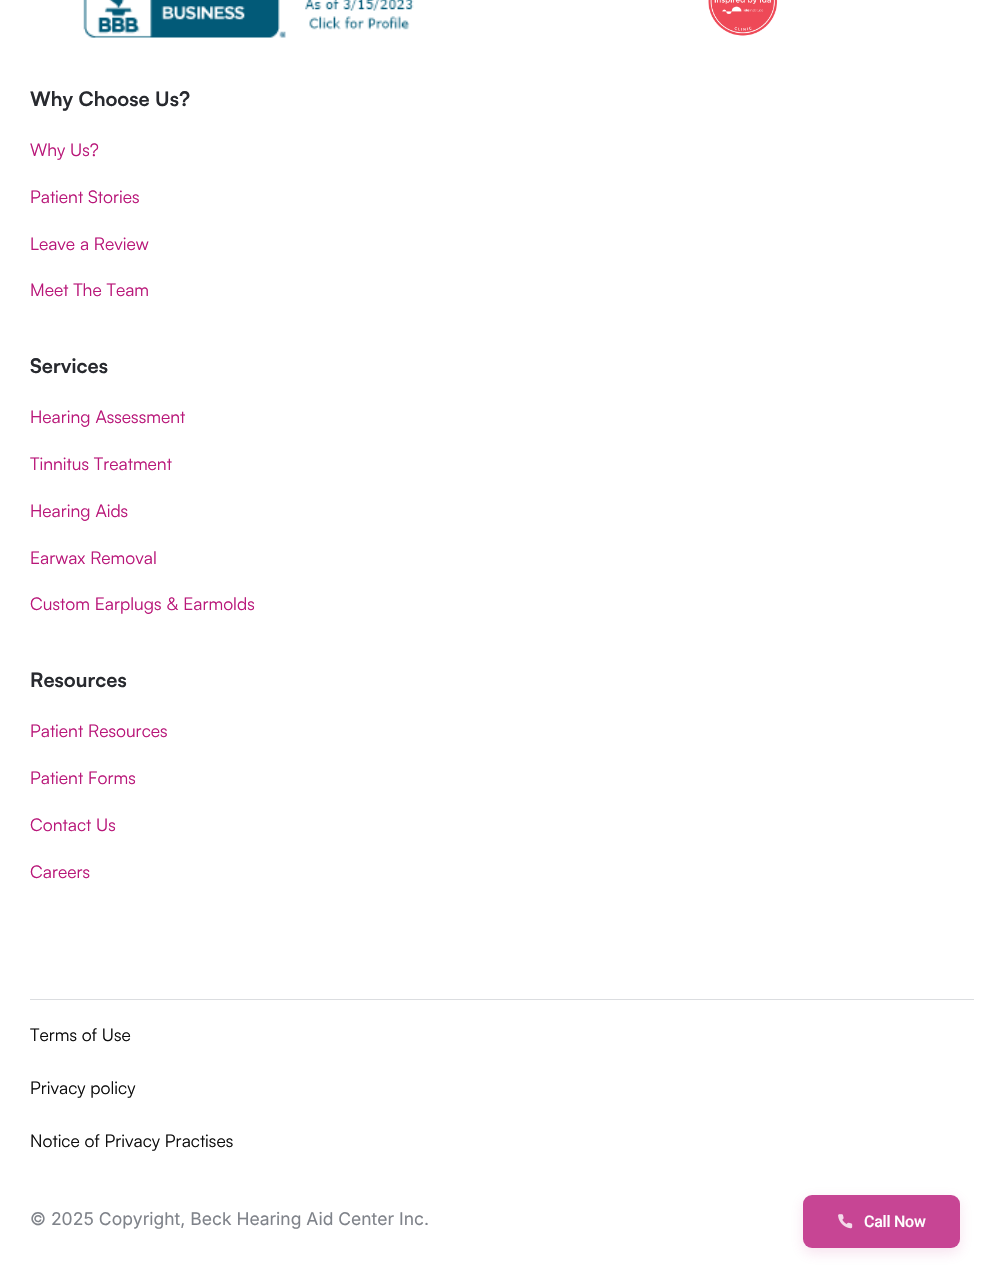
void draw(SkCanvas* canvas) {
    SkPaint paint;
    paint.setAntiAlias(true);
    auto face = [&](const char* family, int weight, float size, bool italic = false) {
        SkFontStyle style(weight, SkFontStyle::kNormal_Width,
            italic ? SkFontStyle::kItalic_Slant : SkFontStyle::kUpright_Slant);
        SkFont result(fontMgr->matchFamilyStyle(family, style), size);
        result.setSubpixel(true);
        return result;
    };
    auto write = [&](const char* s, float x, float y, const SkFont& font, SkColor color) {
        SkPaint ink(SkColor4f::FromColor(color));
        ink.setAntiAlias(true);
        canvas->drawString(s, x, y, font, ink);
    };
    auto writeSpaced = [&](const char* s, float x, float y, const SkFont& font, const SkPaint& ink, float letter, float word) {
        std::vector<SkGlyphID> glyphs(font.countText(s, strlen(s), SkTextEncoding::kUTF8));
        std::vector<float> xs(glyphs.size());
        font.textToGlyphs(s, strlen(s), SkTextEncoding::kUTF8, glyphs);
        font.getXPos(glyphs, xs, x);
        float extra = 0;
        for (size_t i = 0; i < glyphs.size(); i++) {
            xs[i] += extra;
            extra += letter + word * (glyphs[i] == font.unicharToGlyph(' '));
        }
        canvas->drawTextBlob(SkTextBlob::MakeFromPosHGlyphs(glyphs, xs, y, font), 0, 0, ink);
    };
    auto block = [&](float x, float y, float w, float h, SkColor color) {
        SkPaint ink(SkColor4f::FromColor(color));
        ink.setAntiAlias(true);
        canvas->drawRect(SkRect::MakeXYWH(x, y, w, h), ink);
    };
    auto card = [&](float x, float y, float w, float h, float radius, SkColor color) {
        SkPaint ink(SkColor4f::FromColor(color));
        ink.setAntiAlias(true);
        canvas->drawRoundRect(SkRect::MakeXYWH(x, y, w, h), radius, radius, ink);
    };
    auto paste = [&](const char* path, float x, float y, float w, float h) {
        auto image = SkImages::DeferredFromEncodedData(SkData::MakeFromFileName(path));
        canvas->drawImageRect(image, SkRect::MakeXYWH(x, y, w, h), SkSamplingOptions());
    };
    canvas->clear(SK_ColorWHITE);
    paste("pic1.png", 83, 0, 331, 38);
    paste("pic2.png", 708, 0, 70, 36);
    auto kFont1 = face("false", 700, 20);
    write("Why Choose Us?", 30, 106, kFont1, SkColorSetRGB(40, 42, 47));
    auto kFont2 = face("false", 400, 17.5f);
    write("Why Us?", 30, 156, kFont2, SkColorSetRGB(185, 23, 121));
    write("Patient Stories", 30, 203, kFont2, SkColorSetRGB(185, 23, 121));
    write("Leave a Review", 30, 250, kFont2, SkColorSetRGB(185, 23, 121));
    write("Meet The Team", 30, 296, kFont2, SkColorSetRGB(185, 23, 121));
    write("Services", 30, 373, kFont1, SkColorSetRGB(40, 42, 47));
    write("Hearing Assessment", 30, 423, kFont2, SkColorSetRGB(185, 23, 121));
    write("Tinnitus Treatment", 30, 470, kFont2, SkColorSetRGB(185, 23, 121));
    write("Hearing Aids", 30, 517, kFont2, SkColorSetRGB(185, 23, 121));
    write("Earwax Removal", 30, 564, kFont2, SkColorSetRGB(185, 23, 121));
    write("Custom Earplugs & Earmolds", 30, 610, kFont2, SkColorSetRGB(185, 23, 121));
    write("Resources", 30, 687, kFont1, SkColorSetRGB(40, 42, 47));
    write("Patient Resources", 30, 737, kFont2, SkColorSetRGB(185, 23, 121));
    write("Patient Forms", 30, 784, kFont2, SkColorSetRGB(185, 23, 121));
    write("Contact Us", 30, 831, kFont2, SkColorSetRGB(185, 23, 121));
    write("Careers", 30, 878, kFont2, SkColorSetRGB(185, 23, 121));
    block(30, 999, 944, 1, SkColorSetRGB(219, 221, 224));
    write("Terms of Use", 30, 1041, kFont2, SkColorSetRGB(13, 13, 13));
    write("Privacy policy", 30, 1094, kFont2, SkColorSetRGB(13, 13, 13));
    write("Notice of Privacy Practises", 30, 1147, kFont2, SkColorSetRGB(13, 13, 13));
    auto kFont3 = face("Inter", 400, 17.5f);
    write("© 2025 Copyright, Beck Hearing Aid Center Inc.", 30, 1225, kFont3, SkColorSetRGB(127, 131, 138));
    paint.setColor(SkColorSetARGB(38, 199, 69, 148));
    paint.setMaskFilter(SkMaskFilter::MakeBlur(kNormal_SkBlurStyle, 6.5f));
    canvas->drawRoundRect(SkRect::MakeXYWH(803, 1199, 157, 54), 9, 9, paint);
    paint.setMaskFilter(nullptr);
    card(803, 1195, 157, 53, 9, SkColorSetRGB(199, 69, 148));
    paste("pic3.png", 838, 1214, 15, 15);
    auto kFont4 = face("Roboto", 500, 16);
    paint.setColor(SK_ColorWHITE);
    writeSpaced("Call Now", 864, 1227, kFont4, paint, -0.25f, 0);
}
